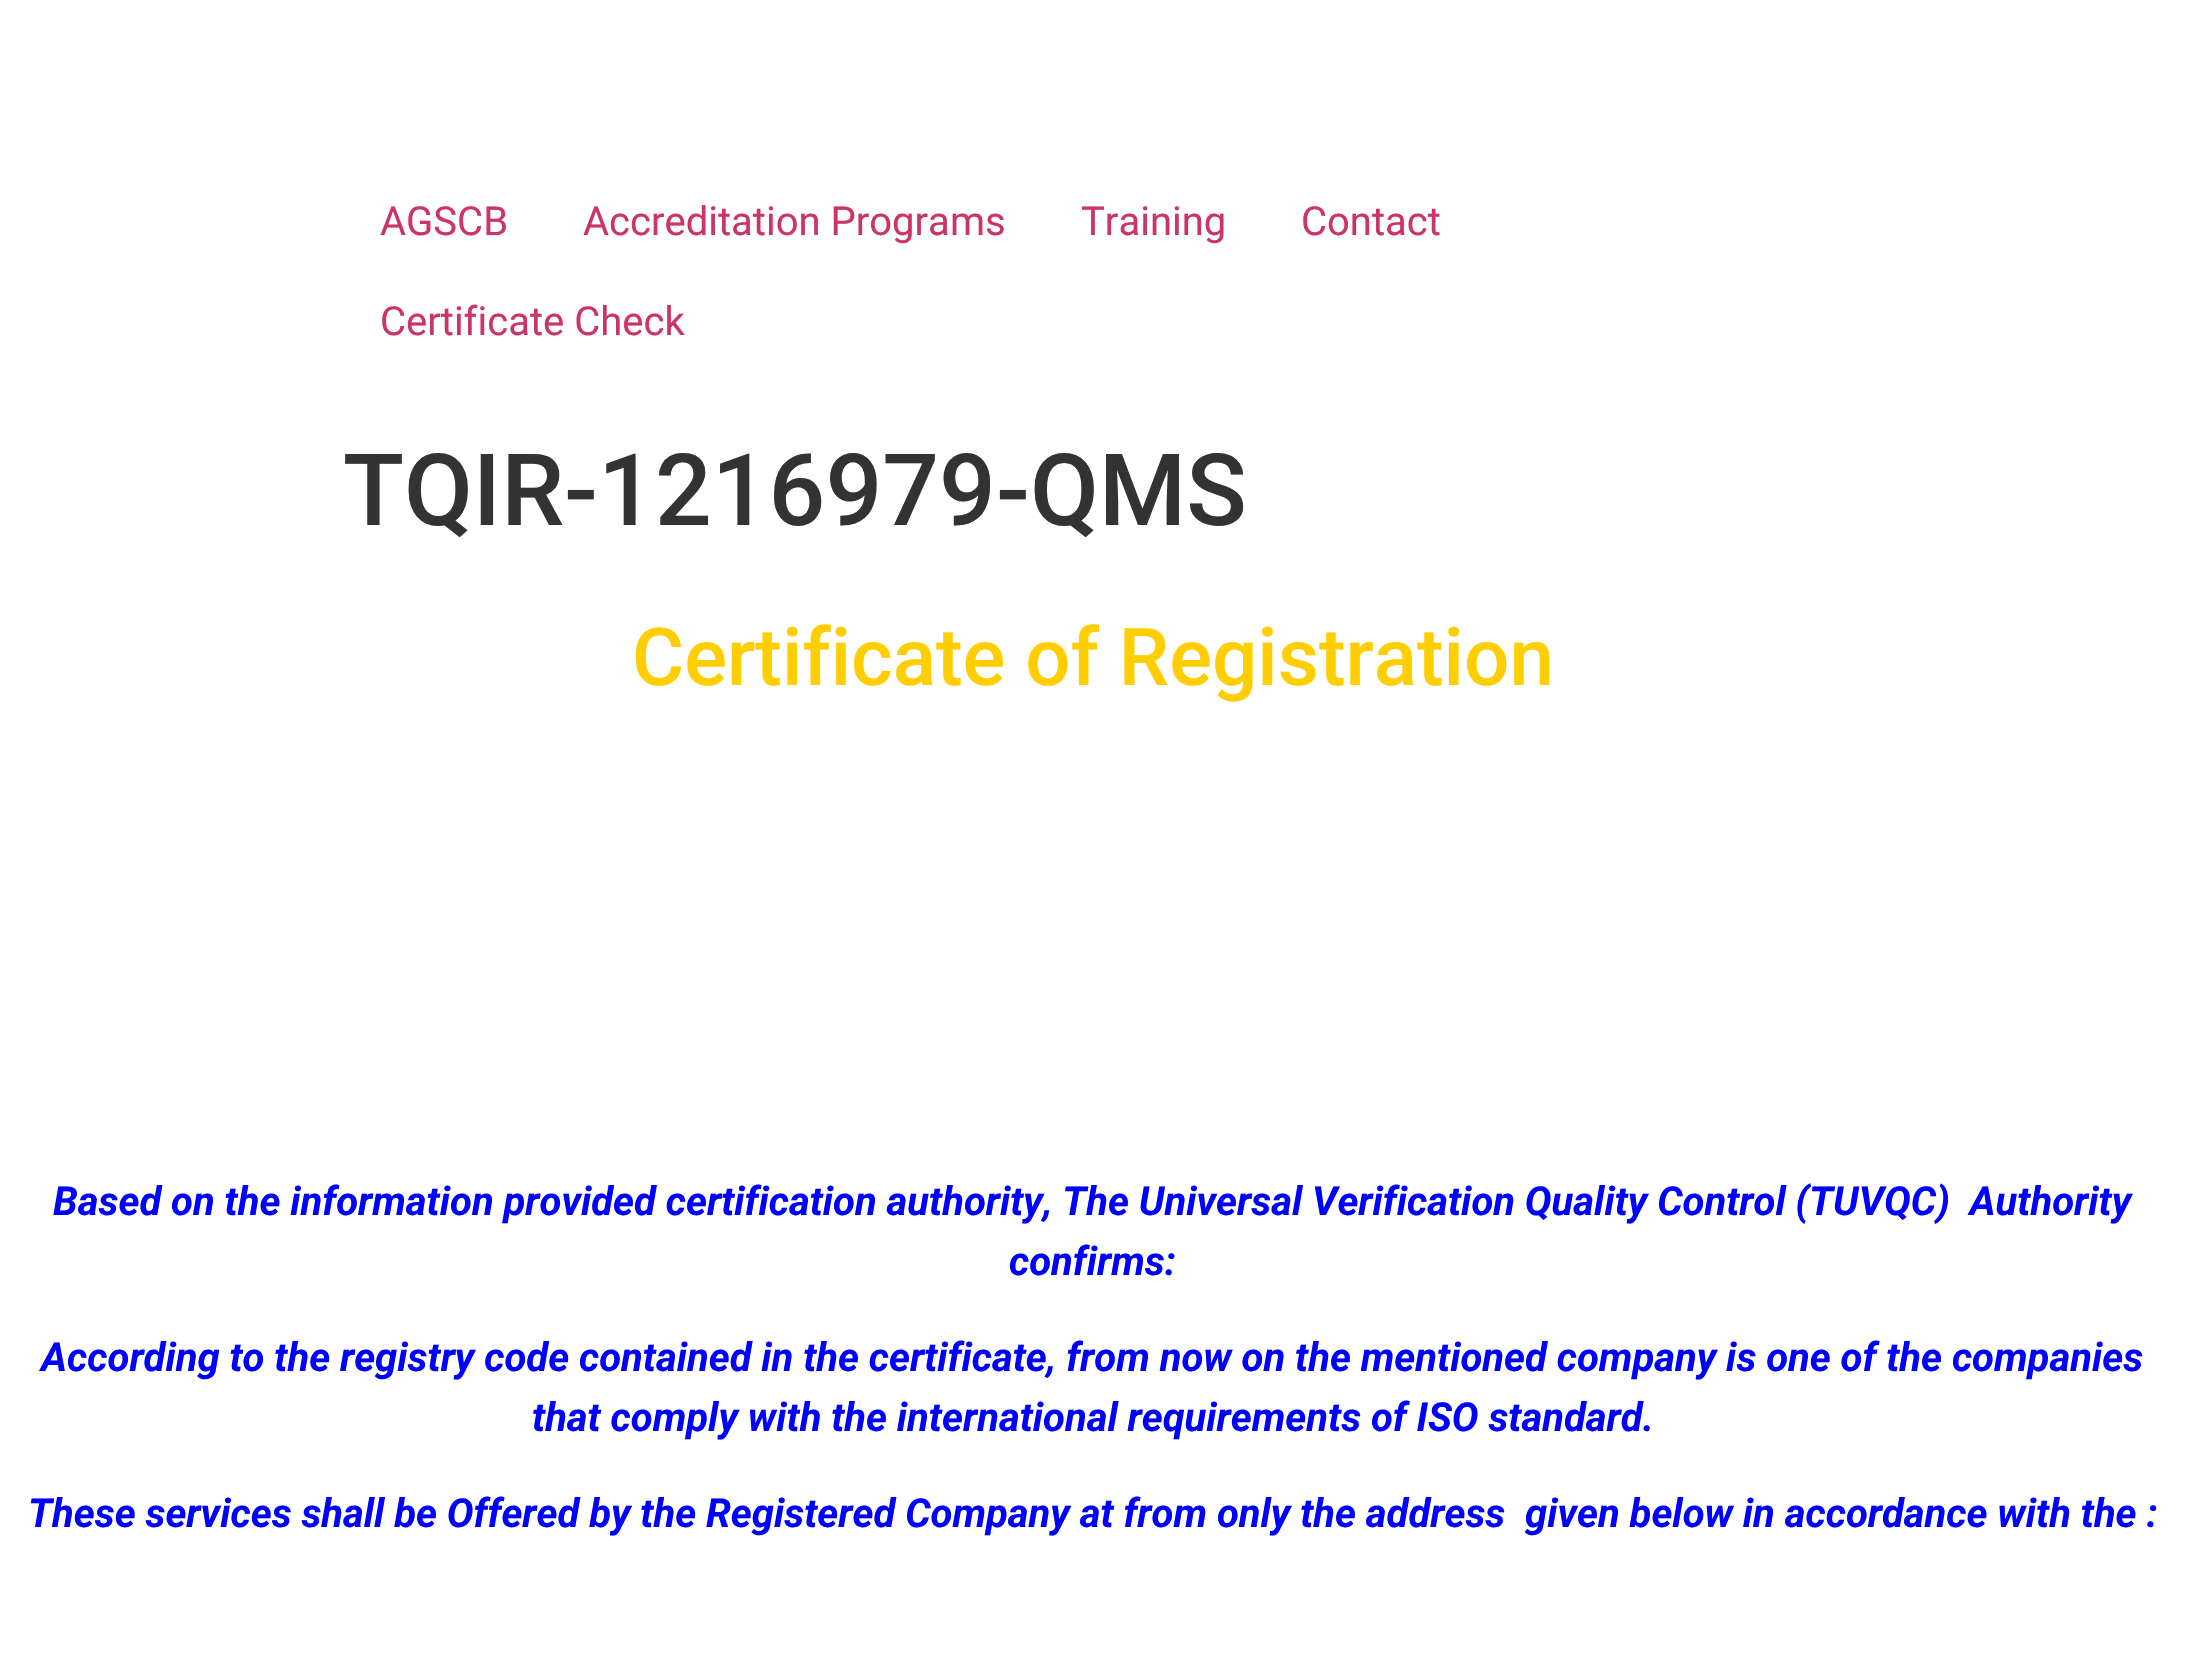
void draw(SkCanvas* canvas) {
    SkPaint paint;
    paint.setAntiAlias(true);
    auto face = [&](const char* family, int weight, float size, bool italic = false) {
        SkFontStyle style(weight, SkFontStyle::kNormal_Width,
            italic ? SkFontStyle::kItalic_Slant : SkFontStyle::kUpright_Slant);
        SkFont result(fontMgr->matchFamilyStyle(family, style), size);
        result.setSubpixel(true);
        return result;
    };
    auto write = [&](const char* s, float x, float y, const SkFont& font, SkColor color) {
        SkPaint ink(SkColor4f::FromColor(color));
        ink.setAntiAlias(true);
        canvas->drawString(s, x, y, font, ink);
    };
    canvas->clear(SK_ColorWHITE);
    auto kFont1 = face("Roboto", 400, 40);
    write("AGSCB", 380, 235, kFont1, SkColorSetRGB(204, 51, 102));
    write("Accreditation Programs", 583, 235, kFont1, SkColorSetRGB(204, 51, 102));
    write("Training", 1081, 235, kFont1, SkColorSetRGB(204, 51, 102));
    write("Contact", 1301, 235, kFont1, SkColorSetRGB(204, 51, 102));
    write("Certificate Check", 380, 335, kFont1, SkColorSetRGB(204, 51, 102));
    auto kFont2 = face("Roboto", 500, 100);
    write("TQIR-1216979-QMS", 343, 525, kFont2, SkColorSetRGB(51, 51, 51));
    auto kFont3 = face("Roboto", 500, 80);
    write("Certificate of Registration", 632, 685, kFont3, SkColorSetRGB(255, 206, 0));
    auto kFont4 = face("Roboto", 700, 40, true);
    write("Based on the information provided certification authority, The Universal Verification Quality Control (TUVQC)  Authority", 53, 1215, kFont4, SkColorSetRGB(0, 0, 255));
    write("confirms:", 1009, 1275, kFont4, SkColorSetRGB(0, 0, 255));
    write("According to the registry code contained in the certificate, from now on the mentioned company is one of the companies", 41, 1371, kFont4, SkColorSetRGB(0, 0, 255));
    write("that comply with the international requirements of ISO standard.", 532, 1431, kFont4, SkColorSetRGB(0, 0, 255));
    write("These services shall be Offered by the Registered Company at from only the address  given below in accordance with the :", 28, 1527, kFont4, SkColorSetRGB(0, 0, 255));
}
